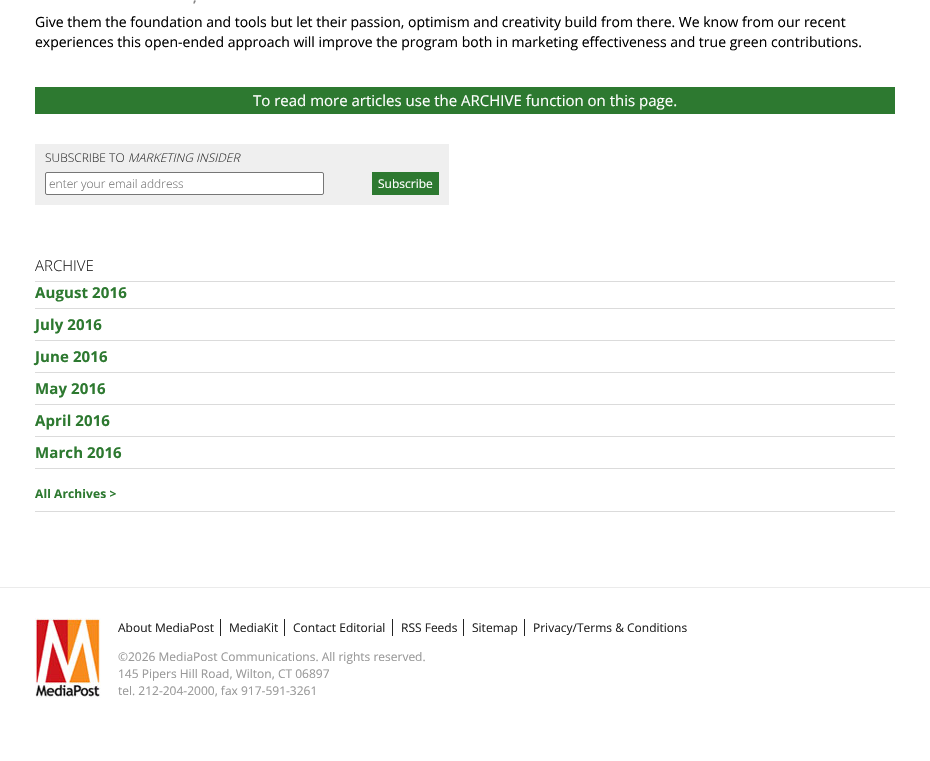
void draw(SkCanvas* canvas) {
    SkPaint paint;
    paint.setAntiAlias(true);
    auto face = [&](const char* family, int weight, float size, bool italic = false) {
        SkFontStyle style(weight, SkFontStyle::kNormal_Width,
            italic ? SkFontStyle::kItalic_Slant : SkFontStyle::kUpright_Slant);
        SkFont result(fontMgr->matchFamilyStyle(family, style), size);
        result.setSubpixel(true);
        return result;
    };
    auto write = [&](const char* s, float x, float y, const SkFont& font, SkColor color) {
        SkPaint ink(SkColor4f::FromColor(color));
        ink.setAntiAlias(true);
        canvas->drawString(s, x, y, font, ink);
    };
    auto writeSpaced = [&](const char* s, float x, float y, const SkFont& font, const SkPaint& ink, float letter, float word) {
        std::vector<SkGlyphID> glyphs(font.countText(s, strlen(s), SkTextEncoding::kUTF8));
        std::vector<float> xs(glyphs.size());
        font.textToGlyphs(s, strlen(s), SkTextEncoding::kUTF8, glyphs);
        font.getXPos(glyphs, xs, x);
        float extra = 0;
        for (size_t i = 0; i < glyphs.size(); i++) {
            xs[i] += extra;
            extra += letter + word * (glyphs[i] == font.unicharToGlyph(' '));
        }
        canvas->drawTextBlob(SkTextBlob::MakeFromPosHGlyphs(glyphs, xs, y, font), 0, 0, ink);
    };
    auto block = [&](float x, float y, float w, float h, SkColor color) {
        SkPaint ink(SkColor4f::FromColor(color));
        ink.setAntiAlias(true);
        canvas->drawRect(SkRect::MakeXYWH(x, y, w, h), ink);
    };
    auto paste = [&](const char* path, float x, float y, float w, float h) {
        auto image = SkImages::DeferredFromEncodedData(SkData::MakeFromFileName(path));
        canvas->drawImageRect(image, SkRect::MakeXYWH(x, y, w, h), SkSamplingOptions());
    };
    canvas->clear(SK_ColorWHITE);
    auto kFont1 = face("Open Sans", 700, 12);
    write(",", 193, 2, kFont1, SkColorSetRGB(133, 132, 132));
    auto kFont2 = face("Open Sans", 400, 14);
    write("Give them the foundation and tools but let their passion, optimism and creativity build from there. We know from our recent", 35, 27, kFont2, SK_ColorBLACK);
    write("experiences this open-ended approach will improve the program both in marketing effectiveness and true green contributions.", 35, 47, kFont2, SK_ColorBLACK);
    block(35, 87, 860, 27, SkColorSetRGB(45, 121, 48));
    auto kFont3 = face("Open Sans", 400, 15);
    write("To read more articles use the ARCHIVE function on this page.", 253, 106, kFont3, SK_ColorWHITE);
    block(35, 144, 414, 61, SkColorSetRGB(239, 239, 239));
    auto kFont4 = face("Open Sans", 300, 12);
    write("SUBSCRIBE TO", 45, 162, kFont4, SkColorSetRGB(51, 51, 51));
    auto kFont5 = face("Open Sans", 300, 12, true);
    write("MARKETING INSIDER", 128, 162, kFont5, SkColorSetRGB(51, 51, 51));
    paint.setColor(SK_ColorWHITE);
    canvas->drawRoundRect(SkRect::MakeXYWH(45.5f, 172.5f, 278, 22), 1.5f, 1.5f, paint);
    paint.setStyle(SkPaint::kStroke_Style);
    paint.setStrokeWidth(1);
    paint.setColor(SkColorSetRGB(118, 118, 118));
    canvas->drawRoundRect(SkRect::MakeXYWH(45.5f, 172.5f, 278, 22), 1.5f, 1.5f, paint);
    write("enter your email address", 49, 188, kFont4, SkColorSetRGB(117, 117, 117));
    block(372, 172, 67, 23, SkColorSetRGB(45, 121, 48));
    auto kFont6 = face("Open Sans", 400, 12);
    write("Subscribe", 378, 188, kFont6, SK_ColorWHITE);
    block(35, 281, 860, 1, SkColorSetRGB(219, 219, 219));
    auto kFont7 = face("Open Sans", 300, 15);
    write("ARCHIVE", 35, 271, kFont7, SkColorSetRGB(36, 36, 36));
    block(35, 308, 860, 1, SkColorSetRGB(219, 219, 219));
    auto kFont8 = face("Open Sans", 700, 15);
    paint.setStyle(SkPaint::kFill_Style);
    paint.setColor(SkColorSetRGB(45, 121, 48));
    writeSpaced("August 2016", 35, 298, kFont8, paint, 0.1f, 0);
    block(35, 340, 860, 1, SkColorSetRGB(219, 219, 219));
    writeSpaced("July 2016", 35, 330, kFont8, paint, 0.1f, 0);
    block(35, 372, 860, 1, SkColorSetRGB(219, 219, 219));
    writeSpaced("June 2016", 35, 362, kFont8, paint, 0.1f, 0);
    block(35, 404, 860, 1, SkColorSetRGB(219, 219, 219));
    writeSpaced("May 2016", 35, 394, kFont8, paint, 0.1f, 0);
    block(35, 436, 860, 1, SkColorSetRGB(219, 219, 219));
    writeSpaced("April 2016", 35, 426, kFont8, paint, 0.1f, 0);
    block(35, 468, 860, 1, SkColorSetRGB(219, 219, 219));
    writeSpaced("March 2016", 35, 458, kFont8, paint, 0.1f, 0);
    block(35, 511, 860, 1, SkColorSetRGB(219, 219, 219));
    writeSpaced("All Archives >", 35, 498, kFont1, paint, 0.1f, 0);
    block(0, 587, 930, 1, SkColorSetRGB(235, 235, 235));
    paste("pic1.png", 35, 618, 66, 80);
    write("About MediaPost", 118, 632, kFont6, SkColorSetRGB(36, 36, 36));
    block(220, 619, 1, 17, SkColorSetRGB(36, 36, 36));
    write("MediaKit", 229, 632, kFont6, SkColorSetRGB(36, 36, 36));
    block(284, 619, 1, 17, SkColorSetRGB(36, 36, 36));
    write("Contact Editorial", 293, 632, kFont6, SkColorSetRGB(36, 36, 36));
    block(392, 619, 1, 17, SkColorSetRGB(36, 36, 36));
    write("RSS Feeds", 401, 632, kFont6, SkColorSetRGB(36, 36, 36));
    block(463, 619, 1, 17, SkColorSetRGB(36, 36, 36));
    write("Sitemap", 472, 632, kFont6, SkColorSetRGB(36, 36, 36));
    block(524, 619, 1, 17, SkColorSetRGB(36, 36, 36));
    write("Privacy/Terms & Conditions", 533, 632, kFont6, SkColorSetRGB(36, 36, 36));
    write("©2026 MediaPost Communications. All rights reserved.", 118, 661, kFont6, SkColorSetRGB(153, 153, 153));
    write("145 Pipers Hill Road, Wilton, CT 06897", 118, 678, kFont6, SkColorSetRGB(153, 153, 153));
    write("tel. 212-204-2000, fax 917-591-3261", 118, 695, kFont6, SkColorSetRGB(153, 153, 153));
}
